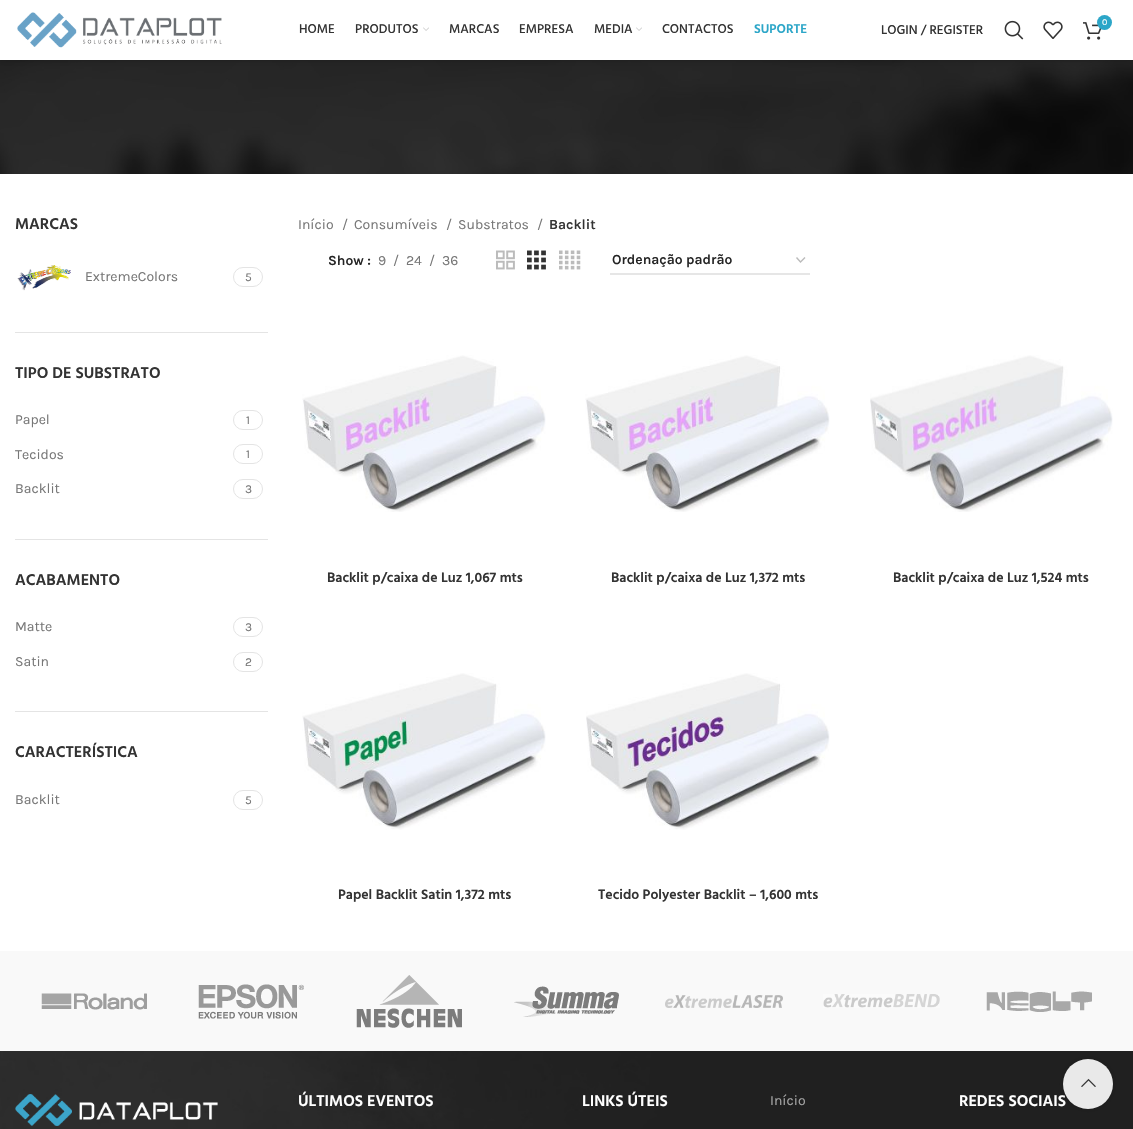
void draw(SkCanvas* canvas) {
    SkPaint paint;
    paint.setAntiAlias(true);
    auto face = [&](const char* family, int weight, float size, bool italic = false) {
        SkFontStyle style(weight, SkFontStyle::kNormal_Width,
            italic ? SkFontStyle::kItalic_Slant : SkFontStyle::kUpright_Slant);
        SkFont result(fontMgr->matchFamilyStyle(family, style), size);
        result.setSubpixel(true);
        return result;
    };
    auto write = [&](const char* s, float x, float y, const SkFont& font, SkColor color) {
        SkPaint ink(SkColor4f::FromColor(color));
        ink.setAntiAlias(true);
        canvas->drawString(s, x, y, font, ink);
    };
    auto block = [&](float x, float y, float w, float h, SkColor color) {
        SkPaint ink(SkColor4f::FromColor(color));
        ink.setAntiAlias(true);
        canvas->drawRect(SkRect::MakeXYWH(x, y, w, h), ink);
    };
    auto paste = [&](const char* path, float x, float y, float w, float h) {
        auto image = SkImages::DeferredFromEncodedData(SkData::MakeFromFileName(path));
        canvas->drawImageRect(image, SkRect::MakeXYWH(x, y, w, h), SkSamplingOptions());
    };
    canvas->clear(SK_ColorWHITE);
    paste("pic6.png", 0, 60, 1133, 114);
    paint.setColor(SkColorSetARGB(26, 0, 0, 0));
    paint.setMaskFilter(SkMaskFilter::MakeBlur(kNormal_SkBlurStyle, 1.5f));
    canvas->drawRect(SkRect::MakeXYWH(0, 1, 1133, 60), paint);
    paint.setMaskFilter(nullptr);
    paint.setMaskFilter(SkMaskFilter::MakeBlur(kNormal_SkBlurStyle, 4));
    canvas->drawRect(SkRect::MakeXYWH(0, 1, 1133, 60), paint);
    paint.setMaskFilter(nullptr);
    block(0, 0, 1133, 60, SK_ColorWHITE);
    paste("pic1.png", 17, 12, 205, 36);
    auto kFont1 = face("Hind", 500, 13);
    write("HOME", 299, 33, kFont1, SkColorSetRGB(51, 51, 51));
    write("PRODUTOS", 355, 33, kFont1, SkColorSetRGB(51, 51, 51));
    paste("pic2.png", 423, 27, 6, 4);
    write("MARCAS", 449, 33, kFont1, SkColorSetRGB(51, 51, 51));
    write("EMPRESA", 519, 33, kFont1, SkColorSetRGB(51, 51, 51));
    write("MEDIA", 594, 33, kFont1, SkColorSetRGB(51, 51, 51));
    paste("pic2.png", 636, 27, 6, 4);
    write("CONTACTOS", 662, 33, kFont1, SkColorSetRGB(51, 51, 51));
    auto kFont2 = face("Hind", 600, 13);
    write("SUPORTE", 754, 33, kFont2, SkColorSetRGB(44, 166, 200));
    write("LOGIN / REGISTER", 881, 34, kFont1, SkColorSetRGB(51, 51, 51));
    paste("pic3.png", 1004, 20, 20, 20);
    paste("pic4.png", 1043, 21, 20, 18);
    paste("pic5.png", 1083, 22, 19, 18);
    paint.setColor(SkColorSetRGB(44, 166, 200));
    canvas->drawCircle(1104.5f, 22.5f, 7.5f, paint);
    auto kFont3 = face("Karla", 400, 9);
    write("0", 1102, 25, kFont3, SK_ColorWHITE);
    block(15, 332, 253, 1, SkColorSetRGB(228, 228, 228));
    auto kFont4 = face("Hind", 600, 16);
    write("MARCAS", 15, 229, kFont4, SkColorSetRGB(51, 51, 51));
    paste("pic7.png", 17, 265, 54, 26);
    auto kFont5 = face("Karla", 400, 14);
    write("ExtremeColors", 85, 281, kFont5, SkColorSetRGB(119, 119, 119));
    paint.setStyle(SkPaint::kStroke_Style);
    paint.setStrokeWidth(1);
    paint.setColor(SkColorSetRGB(228, 228, 228));
    canvas->drawRoundRect(SkRect::MakeXYWH(233.5f, 267.5f, 29, 19), 9.5f, 9.5f, paint);
    auto kFont6 = face("Karla", 400, 12);
    write("5", 245, 281, kFont6, SkColorSetRGB(119, 119, 119));
    block(15, 539, 253, 1, SkColorSetRGB(228, 228, 228));
    write("TIPO DE SUBSTRATO", 15, 378, kFont4, SkColorSetRGB(51, 51, 51));
    write("Papel", 15, 424, kFont5, SkColorSetRGB(119, 119, 119));
    canvas->drawRoundRect(SkRect::MakeXYWH(233.5f, 410.5f, 29, 19), 9.5f, 9.5f, paint);
    write("1", 246, 424, kFont6, SkColorSetRGB(119, 119, 119));
    write("Tecidos", 15, 459, kFont5, SkColorSetRGB(119, 119, 119));
    canvas->drawRoundRect(SkRect::MakeXYWH(233.5f, 444.5f, 29, 19), 9.5f, 9.5f, paint);
    write("1", 246, 458, kFont6, SkColorSetRGB(119, 119, 119));
    write("Backlit", 15, 493, kFont5, SkColorSetRGB(119, 119, 119));
    canvas->drawRoundRect(SkRect::MakeXYWH(233.5f, 479.5f, 29, 19), 9.5f, 9.5f, paint);
    write("3", 245, 493, kFont6, SkColorSetRGB(119, 119, 119));
    block(15, 711, 253, 1, SkColorSetRGB(228, 228, 228));
    write("ACABAMENTO", 15, 585, kFont4, SkColorSetRGB(51, 51, 51));
    write("Matte", 15, 631, kFont5, SkColorSetRGB(119, 119, 119));
    canvas->drawRoundRect(SkRect::MakeXYWH(233.5f, 617.5f, 29, 19), 9.5f, 9.5f, paint);
    write("3", 245, 631, kFont6, SkColorSetRGB(119, 119, 119));
    write("Satin", 15, 666, kFont5, SkColorSetRGB(119, 119, 119));
    canvas->drawRoundRect(SkRect::MakeXYWH(233.5f, 652.5f, 29, 19), 9.5f, 9.5f, paint);
    write("2", 245, 666, kFont6, SkColorSetRGB(119, 119, 119));
    write("CARACTERÍSTICA", 15, 757, kFont4, SkColorSetRGB(51, 51, 51));
    write("Backlit", 15, 804, kFont5, SkColorSetRGB(119, 119, 119));
    canvas->drawRoundRect(SkRect::MakeXYWH(233.5f, 790.5f, 29, 19), 9.5f, 9.5f, paint);
    write("5", 245, 804, kFont6, SkColorSetRGB(119, 119, 119));
    write("Início", 298, 229, kFont5, SkColorSetRGB(119, 119, 119));
    write("/", 342, 229, kFont5, SkColorSetRGB(119, 119, 119));
    write("Consumíveis", 354, 229, kFont5, SkColorSetRGB(119, 119, 119));
    write("/", 446, 229, kFont5, SkColorSetRGB(119, 119, 119));
    write("Substratos", 458, 229, kFont5, SkColorSetRGB(119, 119, 119));
    write("/", 537, 229, kFont5, SkColorSetRGB(119, 119, 119));
    auto kFont7 = face("Karla", 600, 14);
    write("Backlit", 549, 229, kFont7, SkColorSetRGB(51, 51, 51));
    write("Show :", 328, 265, kFont7, SkColorSetRGB(36, 36, 36));
    write("9", 378, 265, kFont5, SkColorSetRGB(119, 119, 119));
    write("/", 393, 265, kFont5, SkColorSetRGB(119, 119, 119));
    write("24", 406, 265, kFont5, SkColorSetRGB(119, 119, 119));
    write("/", 429, 265, kFont5, SkColorSetRGB(119, 119, 119));
    write("36", 442, 265, kFont5, SkColorSetRGB(119, 119, 119));
    paste("pic8.png", 496, 250, 19, 20);
    paste("pic9.png", 527, 250, 19, 20);
    paste("pic10.png", 559, 250, 22, 20);
    paint.setStrokeWidth(1.4f);
    paint.setColor(SkColorSetRGB(187, 187, 187));
    canvas->drawPath(SkPathBuilder().moveTo(796.5f, 257.5f).lineTo(800.5f, 262).lineTo(805, 257.5f).detach(), paint);
    block(610, 273, 200, 2, SkColorSetRGB(230, 230, 230));
    write("Ordenação padrão", 612, 264, kFont7, SkColorSetRGB(36, 36, 36));
    paste("pic11.png", 302, 355, 244, 157);
    auto kFont8 = face("Hind", 600, 14);
    write("Backlit p/caixa de Luz 1,067 mts", 327, 582, kFont8, SkColorSetRGB(51, 51, 51));
    paste("pic12.png", 585, 355, 245, 157);
    write("Backlit p/caixa de Luz 1,372 mts", 611, 582, kFont8, SkColorSetRGB(51, 51, 51));
    paste("pic13.png", 870, 355, 243, 157);
    write("Backlit p/caixa de Luz 1,524 mts", 893, 582, kFont8, SkColorSetRGB(51, 51, 51));
    paste("pic14.png", 302, 673, 244, 157);
    write("Papel Backlit Satin 1,372 mts", 338, 899, kFont8, SkColorSetRGB(51, 51, 51));
    paste("pic15.png", 586, 673, 244, 157);
    write("Tecido Polyester Backlit – 1,600 mts", 598, 899, kFont8, SkColorSetRGB(51, 51, 51));
    block(0, 951, 1133, 100, SkColorSetRGB(249, 249, 249));
    paste("pic16.png", 41, 993, 106, 17);
    paste("pic17.png", 198, 984, 106, 35);
    paste("pic18.png", 356, 975, 106, 53);
    paste("pic19.png", 514, 986, 105, 31);
    paste("pic20.png", 665, 995, 118, 13);
    paste("pic21.png", 823, 994, 117, 14);
    paste("pic22.png", 986, 991, 106, 21);
    paste("pic23.png", 0, 1051, 1133, 78);
    paste("pic24.png", 15, 1094, 203, 32);
    write("ÚLTIMOS EVENTOS", 298, 1106, kFont4, SK_ColorWHITE);
    write("LINKS ÚTEIS", 582, 1106, kFont4, SK_ColorWHITE);
    write("Início", 770, 1105, kFont5, SkColorSetRGB(166, 166, 166));
    write("REDES SOCIAIS", 959, 1106, kFont4, SK_ColorWHITE);
    paint.setStyle(SkPaint::kFill_Style);
    paint.setColor(SkColorSetARGB(43, 0, 0, 0));
    paint.setMaskFilter(SkMaskFilter::MakeBlur(kNormal_SkBlurStyle, 2.5f));
    canvas->drawRoundRect(SkRect::MakeXYWH(1063, 1059, 50, 50), 25, 25, paint);
    paint.setMaskFilter(nullptr);
    paint.setColor(SkColorSetRGB(233, 233, 233));
    canvas->drawCircle(1088, 1084, 25, paint);
    paste("pic25.png", 1081, 1078, 15, 9);
}
